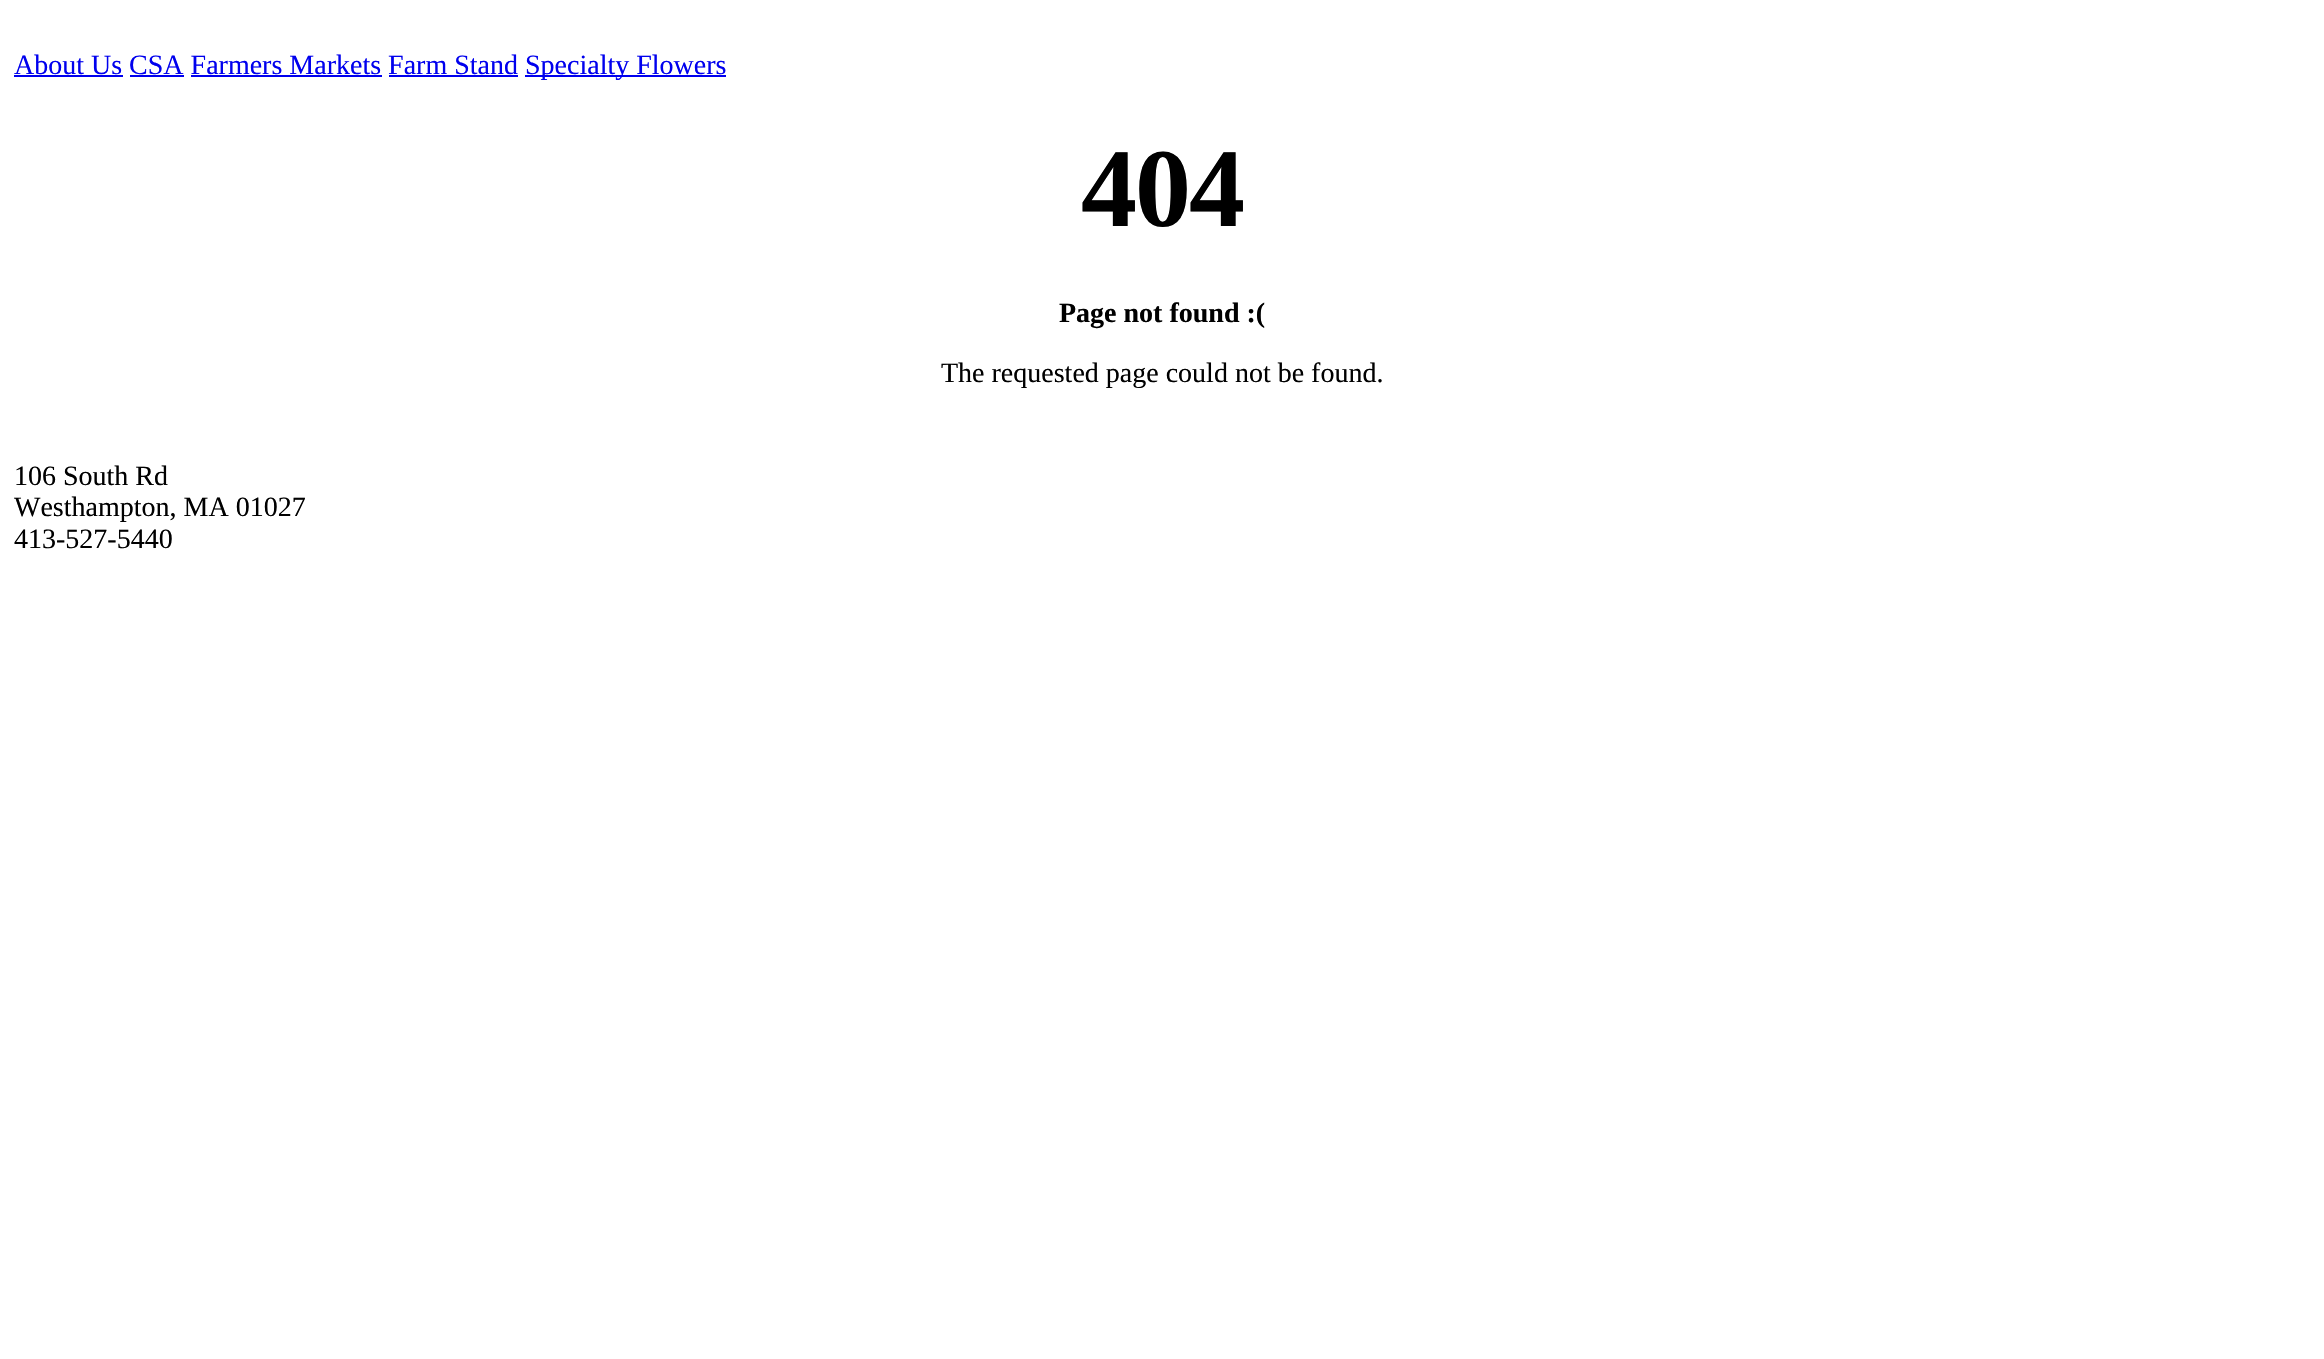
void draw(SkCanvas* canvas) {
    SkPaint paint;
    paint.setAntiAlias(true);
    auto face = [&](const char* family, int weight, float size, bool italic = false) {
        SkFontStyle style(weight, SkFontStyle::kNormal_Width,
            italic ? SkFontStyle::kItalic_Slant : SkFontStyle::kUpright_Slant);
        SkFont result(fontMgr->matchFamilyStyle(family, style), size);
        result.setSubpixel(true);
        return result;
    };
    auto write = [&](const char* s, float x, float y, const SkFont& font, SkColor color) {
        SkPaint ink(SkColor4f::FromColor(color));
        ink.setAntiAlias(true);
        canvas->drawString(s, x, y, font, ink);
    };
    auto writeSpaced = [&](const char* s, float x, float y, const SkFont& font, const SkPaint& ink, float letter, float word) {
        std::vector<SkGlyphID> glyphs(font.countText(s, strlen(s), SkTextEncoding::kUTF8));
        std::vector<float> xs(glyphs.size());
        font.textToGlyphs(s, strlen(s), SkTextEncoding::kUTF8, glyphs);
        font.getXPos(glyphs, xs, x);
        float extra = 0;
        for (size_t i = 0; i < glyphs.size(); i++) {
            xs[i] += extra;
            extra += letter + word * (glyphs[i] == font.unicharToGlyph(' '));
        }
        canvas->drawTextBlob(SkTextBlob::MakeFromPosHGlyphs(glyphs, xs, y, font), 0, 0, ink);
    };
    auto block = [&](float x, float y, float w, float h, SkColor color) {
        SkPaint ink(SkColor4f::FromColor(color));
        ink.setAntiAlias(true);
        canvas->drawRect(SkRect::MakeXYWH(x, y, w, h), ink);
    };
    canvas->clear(SK_ColorWHITE);
    auto kFont1 = face("Liberation Serif", 400, 28);
    write("About Us CSA Farmers Markets Farm Stand", 14, 74, kFont1, SkColorSetRGB(0, 0, 238));
    block(14, 75, 109, 2, SkColorSetRGB(0, 0, 238));
    block(525, 75, 201, 2, SkColorSetRGB(0, 0, 238));
    write("Specialty Flowers", 525, 74, kFont1, SkColorSetRGB(0, 0, 238));
    block(130, 75, 54, 2, SkColorSetRGB(0, 0, 238));
    block(191, 75, 191, 2, SkColorSetRGB(0, 0, 238));
    block(389, 75, 129, 2, SkColorSetRGB(0, 0, 238));
    auto kFont2 = face("Liberation Serif", 700, 112);
    paint.setColor(SK_ColorBLACK);
    writeSpaced("404", 1081, 226, kFont2, paint, -2, 0);
    auto kFont3 = face("Liberation Serif", 700, 28);
    write("Page not found :(", 1059, 322, kFont3, SK_ColorBLACK);
    write("The requested page could not be found.", 941, 382, kFont1, SK_ColorBLACK);
    write("106 South Rd", 14, 485, kFont1, SK_ColorBLACK);
    write("Westhampton, MA 01027", 14, 516, kFont1, SK_ColorBLACK);
    write("413-527-5440", 14, 548, kFont1, SK_ColorBLACK);
}
